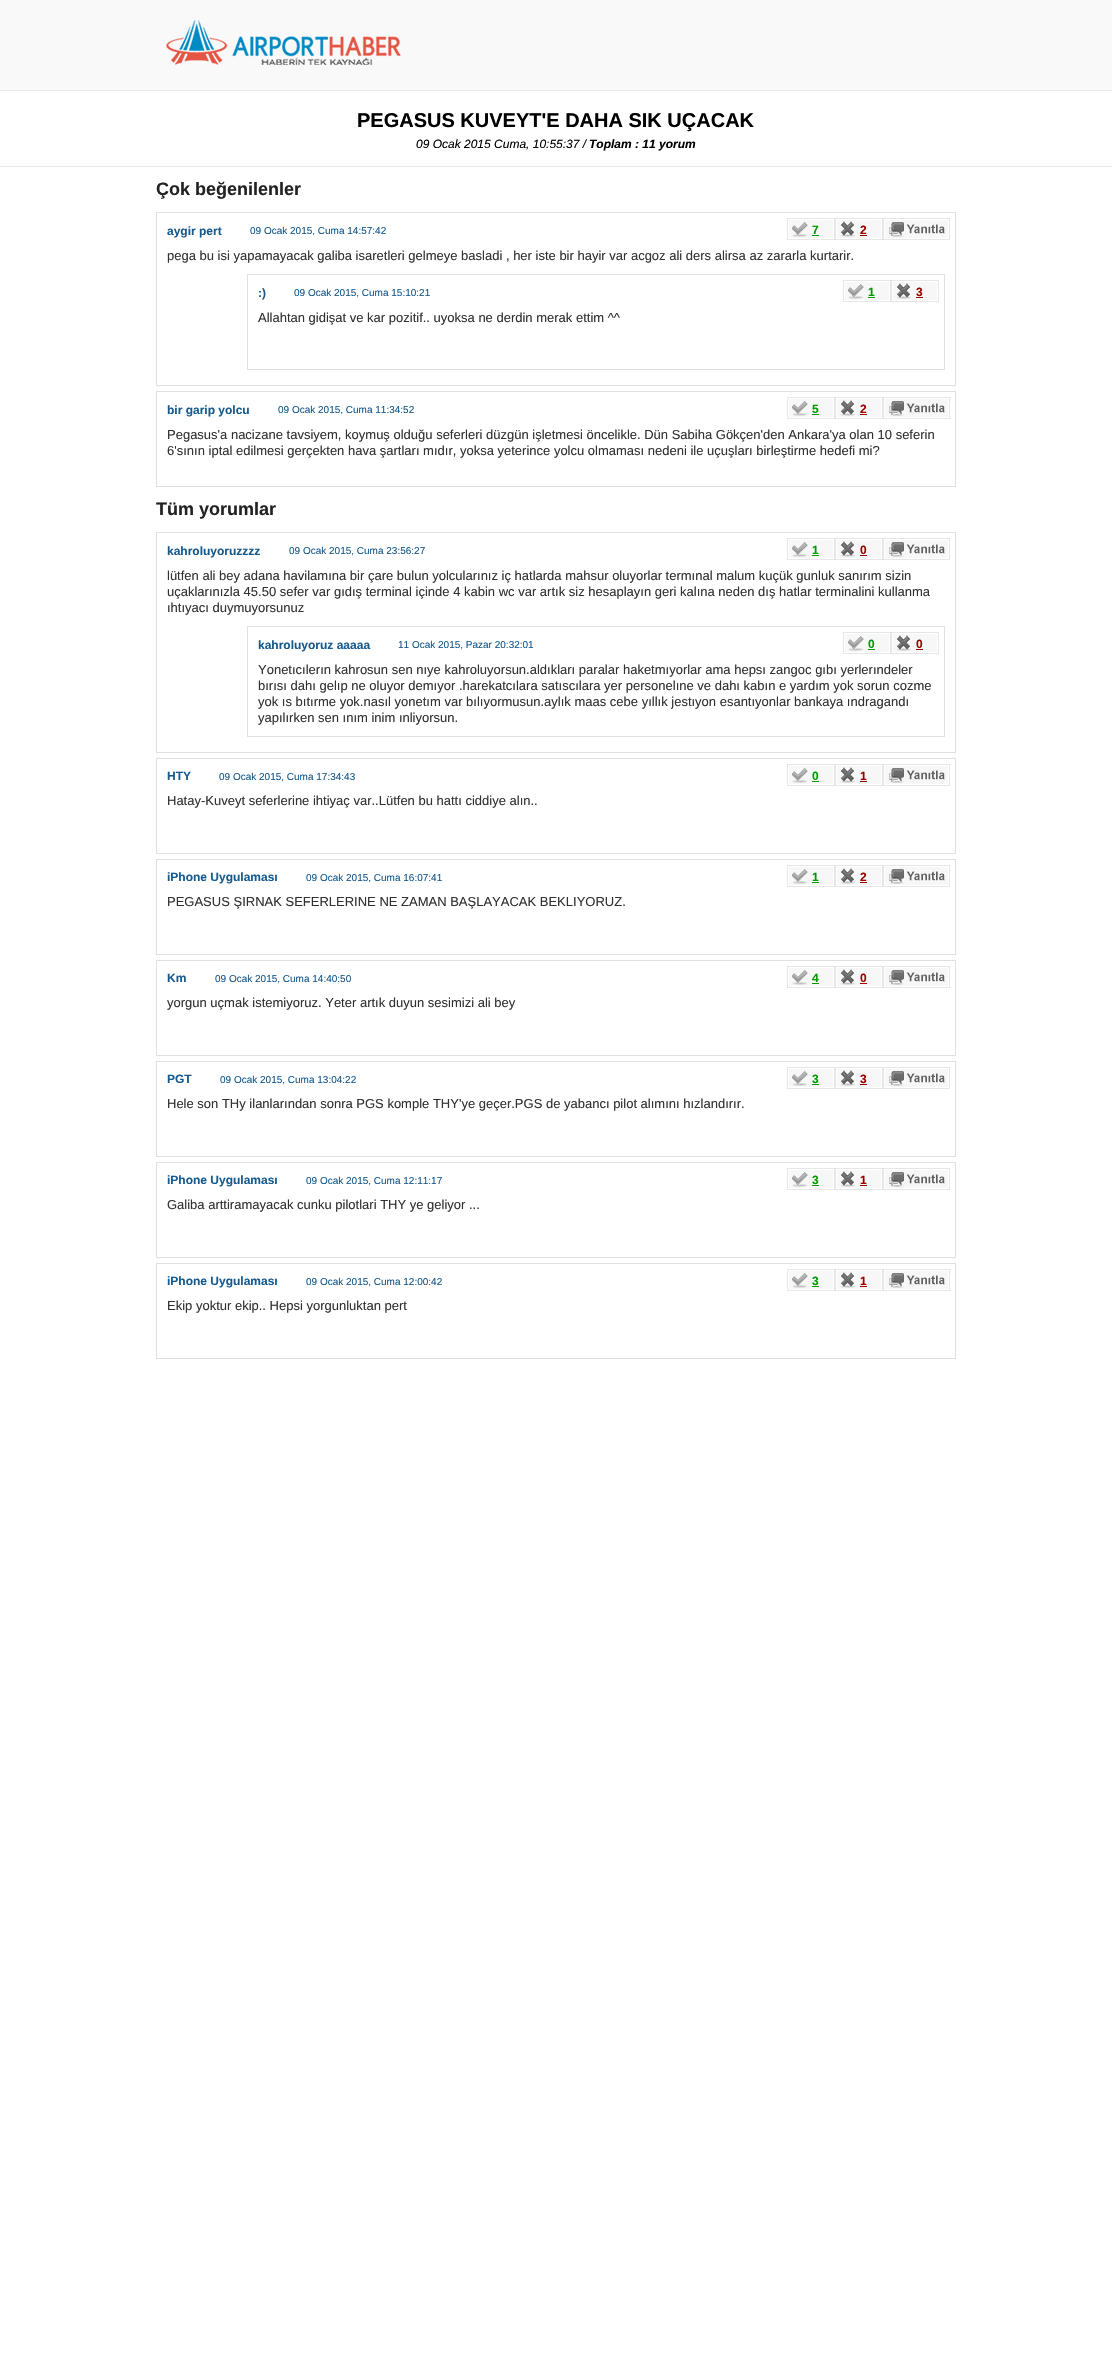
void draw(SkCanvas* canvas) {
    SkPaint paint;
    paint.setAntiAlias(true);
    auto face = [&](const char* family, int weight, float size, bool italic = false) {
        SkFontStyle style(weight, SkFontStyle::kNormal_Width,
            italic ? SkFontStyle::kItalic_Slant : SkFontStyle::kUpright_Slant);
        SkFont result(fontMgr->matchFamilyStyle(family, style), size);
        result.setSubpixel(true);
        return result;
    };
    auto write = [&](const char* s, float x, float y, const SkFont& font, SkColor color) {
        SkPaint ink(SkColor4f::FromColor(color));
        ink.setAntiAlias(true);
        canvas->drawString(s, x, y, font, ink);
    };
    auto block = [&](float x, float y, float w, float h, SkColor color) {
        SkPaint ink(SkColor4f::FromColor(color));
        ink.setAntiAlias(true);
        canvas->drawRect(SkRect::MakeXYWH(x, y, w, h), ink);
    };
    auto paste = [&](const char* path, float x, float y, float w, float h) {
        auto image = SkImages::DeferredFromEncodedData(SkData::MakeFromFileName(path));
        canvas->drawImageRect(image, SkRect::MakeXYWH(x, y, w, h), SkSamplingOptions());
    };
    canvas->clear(SK_ColorWHITE);
    block(0, 0, 1112, 90, SkColorSetRGB(249, 249, 249));
    block(0, 90, 1112, 1, SkColorSetRGB(233, 233, 233));
    paste("pic1.png", 166, 20, 235, 45);
    block(0, 166, 1112, 1, SkColorSetRGB(233, 233, 233));
    auto kFont1 = face("Liberation Sans", 700, 20);
    write("PEGASUS KUVEYT'E DAHA SIK UÇACAK", 357, 127, kFont1, SK_ColorBLACK);
    auto kFont2 = face("Liberation Sans", 400, 12, true);
    write("09 Ocak 2015 Cuma, 10:55:37 /", 416, 148, kFont2, SK_ColorBLACK);
    auto kFont3 = face("Liberation Sans", 700, 12, true);
    write("Toplam : 11 yorum", 589, 148, kFont3, SK_ColorBLACK);
    auto kFont4 = face("Liberation Sans", 700, 18);
    write("Çok beğenilenler", 156, 195, kFont4, SkColorSetRGB(34, 34, 34));
    paint.setStyle(SkPaint::kStroke_Style);
    paint.setStrokeWidth(1);
    paint.setColor(SkColorSetRGB(224, 224, 224));
    canvas->drawRect(SkRect::MakeXYWH(156.5f, 212.5f, 799, 173), paint);
    auto kFont5 = face("Liberation Sans", 700, 12);
    write("aygir pert", 167, 235, kFont5, SkColorSetRGB(22, 90, 142));
    auto kFont6 = face("Liberation Sans", 400, 10);
    write("09 Ocak 2015, Cuma 14:57:42", 250, 234, kFont6, SkColorSetRGB(22, 90, 142));
    paste("pic2.png", 787, 218, 48, 22);
    write("7", 812, 234, kFont5, SkColorSetRGB(0, 153, 0));
    block(812, 235, 7, 1, SkColorSetRGB(0, 153, 0));
    paste("pic3.png", 835, 218, 48, 22);
    write("2", 860, 234, kFont5, SkColorSetRGB(153, 0, 0));
    block(860, 235, 7, 1, SkColorSetRGB(153, 0, 0));
    paste("pic4.png", 883, 218, 67, 22);
    auto kFont7 = face("Liberation Sans", 400, 13);
    write("pega bu isi yapamayacak galiba isaretleri gelmeye basladi , her iste bir hayir var acgoz ali ders alirsa az zararla kurtarir.", 167, 260, kFont7, SkColorSetRGB(49, 49, 49));
    canvas->drawRect(SkRect::MakeXYWH(247.5f, 274.5f, 697, 95), paint);
    write(":)", 258, 297, kFont5, SkColorSetRGB(22, 90, 142));
    write("09 Ocak 2015, Cuma 15:10:21", 294, 296, kFont6, SkColorSetRGB(22, 90, 142));
    paste("pic2.png", 843, 280, 48, 22);
    write("1", 868, 296, kFont5, SkColorSetRGB(0, 153, 0));
    block(868, 297, 7, 1, SkColorSetRGB(0, 153, 0));
    paste("pic3.png", 891, 280, 48, 22);
    write("3", 916, 296, kFont5, SkColorSetRGB(153, 0, 0));
    block(916, 297, 7, 1, SkColorSetRGB(153, 0, 0));
    write("Allahtan gidişat ve kar pozitif.. uyoksa ne derdin merak ettim ^^", 258, 322, kFont7, SkColorSetRGB(49, 49, 49));
    canvas->drawRect(SkRect::MakeXYWH(156.5f, 391.5f, 799, 95), paint);
    write("bir garip yolcu", 167, 414, kFont5, SkColorSetRGB(22, 90, 142));
    write("09 Ocak 2015, Cuma 11:34:52", 278, 413, kFont6, SkColorSetRGB(22, 90, 142));
    paste("pic2.png", 787, 397, 48, 22);
    write("5", 812, 413, kFont5, SkColorSetRGB(0, 153, 0));
    block(812, 414, 7, 1, SkColorSetRGB(0, 153, 0));
    paste("pic3.png", 835, 397, 48, 22);
    write("2", 860, 413, kFont5, SkColorSetRGB(153, 0, 0));
    block(860, 414, 7, 1, SkColorSetRGB(153, 0, 0));
    paste("pic4.png", 883, 397, 67, 22);
    write("Pegasus'a nacizane tavsiyem, koymuş olduğu seferleri düzgün işletmesi öncelikle. Dün Sabiha Gökçen'den Ankara'ya olan 10 seferin", 167, 439, kFont7, SkColorSetRGB(49, 49, 49));
    write("6'sının iptal edilmesi gerçekten hava şartları mıdır, yoksa yeterince yolcu olmaması nedeni ile uçuşları birleştirme hedefi mi?", 167, 455, kFont7, SkColorSetRGB(49, 49, 49));
    write("Tüm yorumlar", 156, 515, kFont4, SkColorSetRGB(34, 34, 34));
    canvas->drawRect(SkRect::MakeXYWH(156.5f, 532.5f, 799, 220), paint);
    write("kahroluyoruzzzz", 167, 555, kFont5, SkColorSetRGB(22, 90, 142));
    write("09 Ocak 2015, Cuma 23:56:27", 289, 554, kFont6, SkColorSetRGB(22, 90, 142));
    paste("pic2.png", 787, 538, 48, 22);
    write("1", 812, 554, kFont5, SkColorSetRGB(0, 153, 0));
    block(812, 555, 7, 1, SkColorSetRGB(0, 153, 0));
    paste("pic3.png", 835, 538, 48, 22);
    write("0", 860, 554, kFont5, SkColorSetRGB(153, 0, 0));
    block(860, 555, 7, 1, SkColorSetRGB(153, 0, 0));
    paste("pic4.png", 883, 538, 67, 22);
    write("lütfen ali bey adana havilamına bir çare bulun yolcularınız iç hatlarda mahsur oluyorlar termınal malum kuçük gunluk sanırım sizin", 167, 580, kFont7, SkColorSetRGB(49, 49, 49));
    write("uçaklarınızla 45.50 sefer var gıdış terminal içinde 4 kabin wc var artık siz hesaplayın geri kalına neden dış hatlar terminalini kullanma", 167, 596, kFont7, SkColorSetRGB(49, 49, 49));
    write("ıhtıyacı duymuyorsunuz", 167, 612, kFont7, SkColorSetRGB(49, 49, 49));
    canvas->drawRect(SkRect::MakeXYWH(247.5f, 626.5f, 697, 110), paint);
    write("kahroluyoruz aaaaa", 258, 649, kFont5, SkColorSetRGB(22, 90, 142));
    write("11 Ocak 2015, Pazar 20:32:01", 398, 648, kFont6, SkColorSetRGB(22, 90, 142));
    paste("pic2.png", 843, 632, 48, 22);
    write("0", 868, 648, kFont5, SkColorSetRGB(0, 153, 0));
    block(868, 649, 7, 1, SkColorSetRGB(0, 153, 0));
    paste("pic3.png", 891, 632, 48, 22);
    write("0", 916, 648, kFont5, SkColorSetRGB(153, 0, 0));
    block(916, 649, 7, 1, SkColorSetRGB(153, 0, 0));
    write("Yonetıcılerın kahrosun sen nıye kahroluyorsun.aldıkları paralar haketmıyorlar ama hepsı zangoc gıbı yerlerındeler", 258, 674, kFont7, SkColorSetRGB(49, 49, 49));
    write("bırısı dahı gelıp ne oluyor demıyor .harekatcılara satıscılara yer personelıne ve dahı kabın e yardım yok sorun cozme", 258, 690, kFont7, SkColorSetRGB(49, 49, 49));
    write("yok ıs bıtırme yok.nasıl yonetım var bılıyormusun.aylık maas cebe yıllık jestıyon esantıyonlar bankaya ındragandı", 258, 706, kFont7, SkColorSetRGB(49, 49, 49));
    write("yapılırken sen ınım inim ınliyorsun.", 258, 722, kFont7, SkColorSetRGB(49, 49, 49));
    canvas->drawRect(SkRect::MakeXYWH(156.5f, 758.5f, 799, 95), paint);
    write("HTY", 167, 780, kFont5, SkColorSetRGB(22, 90, 142));
    write("09 Ocak 2015, Cuma 17:34:43", 219, 780, kFont6, SkColorSetRGB(22, 90, 142));
    paste("pic2.png", 787, 764, 48, 22);
    write("0", 812, 780, kFont5, SkColorSetRGB(0, 153, 0));
    block(812, 781, 7, 1, SkColorSetRGB(0, 153, 0));
    paste("pic3.png", 835, 764, 48, 22);
    write("1", 860, 780, kFont5, SkColorSetRGB(153, 0, 0));
    block(860, 781, 7, 1, SkColorSetRGB(153, 0, 0));
    paste("pic4.png", 883, 764, 67, 22);
    write("Hatay-Kuveyt seferlerine ihtiyaç var..Lütfen bu hattı ciddiye alın..", 167, 805, kFont7, SkColorSetRGB(49, 49, 49));
    canvas->drawRect(SkRect::MakeXYWH(156.5f, 859.5f, 799, 95), paint);
    write("iPhone Uygulaması", 167, 881, kFont5, SkColorSetRGB(22, 90, 142));
    write("09 Ocak 2015, Cuma 16:07:41", 306, 881, kFont6, SkColorSetRGB(22, 90, 142));
    paste("pic2.png", 787, 865, 48, 22);
    write("1", 812, 881, kFont5, SkColorSetRGB(0, 153, 0));
    block(812, 882, 7, 1, SkColorSetRGB(0, 153, 0));
    paste("pic3.png", 835, 865, 48, 22);
    write("2", 860, 881, kFont5, SkColorSetRGB(153, 0, 0));
    block(860, 882, 7, 1, SkColorSetRGB(153, 0, 0));
    paste("pic4.png", 883, 865, 67, 22);
    write("PEGASUS ŞIRNAK SEFERLERINE NE ZAMAN BAŞLAYACAK BEKLIYORUZ.", 167, 906, kFont7, SkColorSetRGB(49, 49, 49));
    canvas->drawRect(SkRect::MakeXYWH(156.5f, 960.5f, 799, 95), paint);
    write("Km", 167, 982, kFont5, SkColorSetRGB(22, 90, 142));
    write("09 Ocak 2015, Cuma 14:40:50", 215, 982, kFont6, SkColorSetRGB(22, 90, 142));
    paste("pic2.png", 787, 966, 48, 22);
    write("4", 812, 982, kFont5, SkColorSetRGB(0, 153, 0));
    block(812, 983, 7, 1, SkColorSetRGB(0, 153, 0));
    paste("pic3.png", 835, 966, 48, 22);
    write("0", 860, 982, kFont5, SkColorSetRGB(153, 0, 0));
    block(860, 983, 7, 1, SkColorSetRGB(153, 0, 0));
    paste("pic4.png", 883, 966, 67, 22);
    write("yorgun uçmak istemiyoruz. Yeter artık duyun sesimizi ali bey", 167, 1007, kFont7, SkColorSetRGB(49, 49, 49));
    canvas->drawRect(SkRect::MakeXYWH(156.5f, 1061.5f, 799, 95), paint);
    write("PGT", 167, 1083, kFont5, SkColorSetRGB(22, 90, 142));
    write("09 Ocak 2015, Cuma 13:04:22", 220, 1083, kFont6, SkColorSetRGB(22, 90, 142));
    paste("pic2.png", 787, 1067, 48, 22);
    write("3", 812, 1083, kFont5, SkColorSetRGB(0, 153, 0));
    block(812, 1084, 7, 1, SkColorSetRGB(0, 153, 0));
    paste("pic3.png", 835, 1067, 48, 22);
    write("3", 860, 1083, kFont5, SkColorSetRGB(153, 0, 0));
    block(860, 1084, 7, 1, SkColorSetRGB(153, 0, 0));
    paste("pic4.png", 883, 1067, 67, 22);
    write("Hele son THy ilanlarından sonra PGS komple THY'ye geçer.PGS de yabancı pilot alımını hızlandırır.", 167, 1108, kFont7, SkColorSetRGB(49, 49, 49));
    canvas->drawRect(SkRect::MakeXYWH(156.5f, 1162.5f, 799, 95), paint);
    write("iPhone Uygulaması", 167, 1184, kFont5, SkColorSetRGB(22, 90, 142));
    write("09 Ocak 2015, Cuma 12:11:17", 306, 1184, kFont6, SkColorSetRGB(22, 90, 142));
    paste("pic2.png", 787, 1168, 48, 22);
    write("3", 812, 1184, kFont5, SkColorSetRGB(0, 153, 0));
    block(812, 1185, 7, 1, SkColorSetRGB(0, 153, 0));
    paste("pic3.png", 835, 1168, 48, 22);
    write("1", 860, 1184, kFont5, SkColorSetRGB(153, 0, 0));
    block(860, 1185, 7, 1, SkColorSetRGB(153, 0, 0));
    paste("pic4.png", 883, 1168, 67, 22);
    write("Galiba arttiramayacak cunku pilotlari THY ye geliyor ...", 167, 1209, kFont7, SkColorSetRGB(49, 49, 49));
    canvas->drawRect(SkRect::MakeXYWH(156.5f, 1263.5f, 799, 95), paint);
    write("iPhone Uygulaması", 167, 1285, kFont5, SkColorSetRGB(22, 90, 142));
    write("09 Ocak 2015, Cuma 12:00:42", 306, 1285, kFont6, SkColorSetRGB(22, 90, 142));
    paste("pic2.png", 787, 1269, 48, 22);
    write("3", 812, 1285, kFont5, SkColorSetRGB(0, 153, 0));
    block(812, 1286, 7, 1, SkColorSetRGB(0, 153, 0));
    paste("pic3.png", 835, 1269, 48, 22);
    write("1", 860, 1285, kFont5, SkColorSetRGB(153, 0, 0));
    block(860, 1286, 7, 1, SkColorSetRGB(153, 0, 0));
    paste("pic4.png", 883, 1269, 67, 22);
    write("Ekip yoktur ekip.. Hepsi yorgunluktan pert", 167, 1310, kFont7, SkColorSetRGB(49, 49, 49));
}
